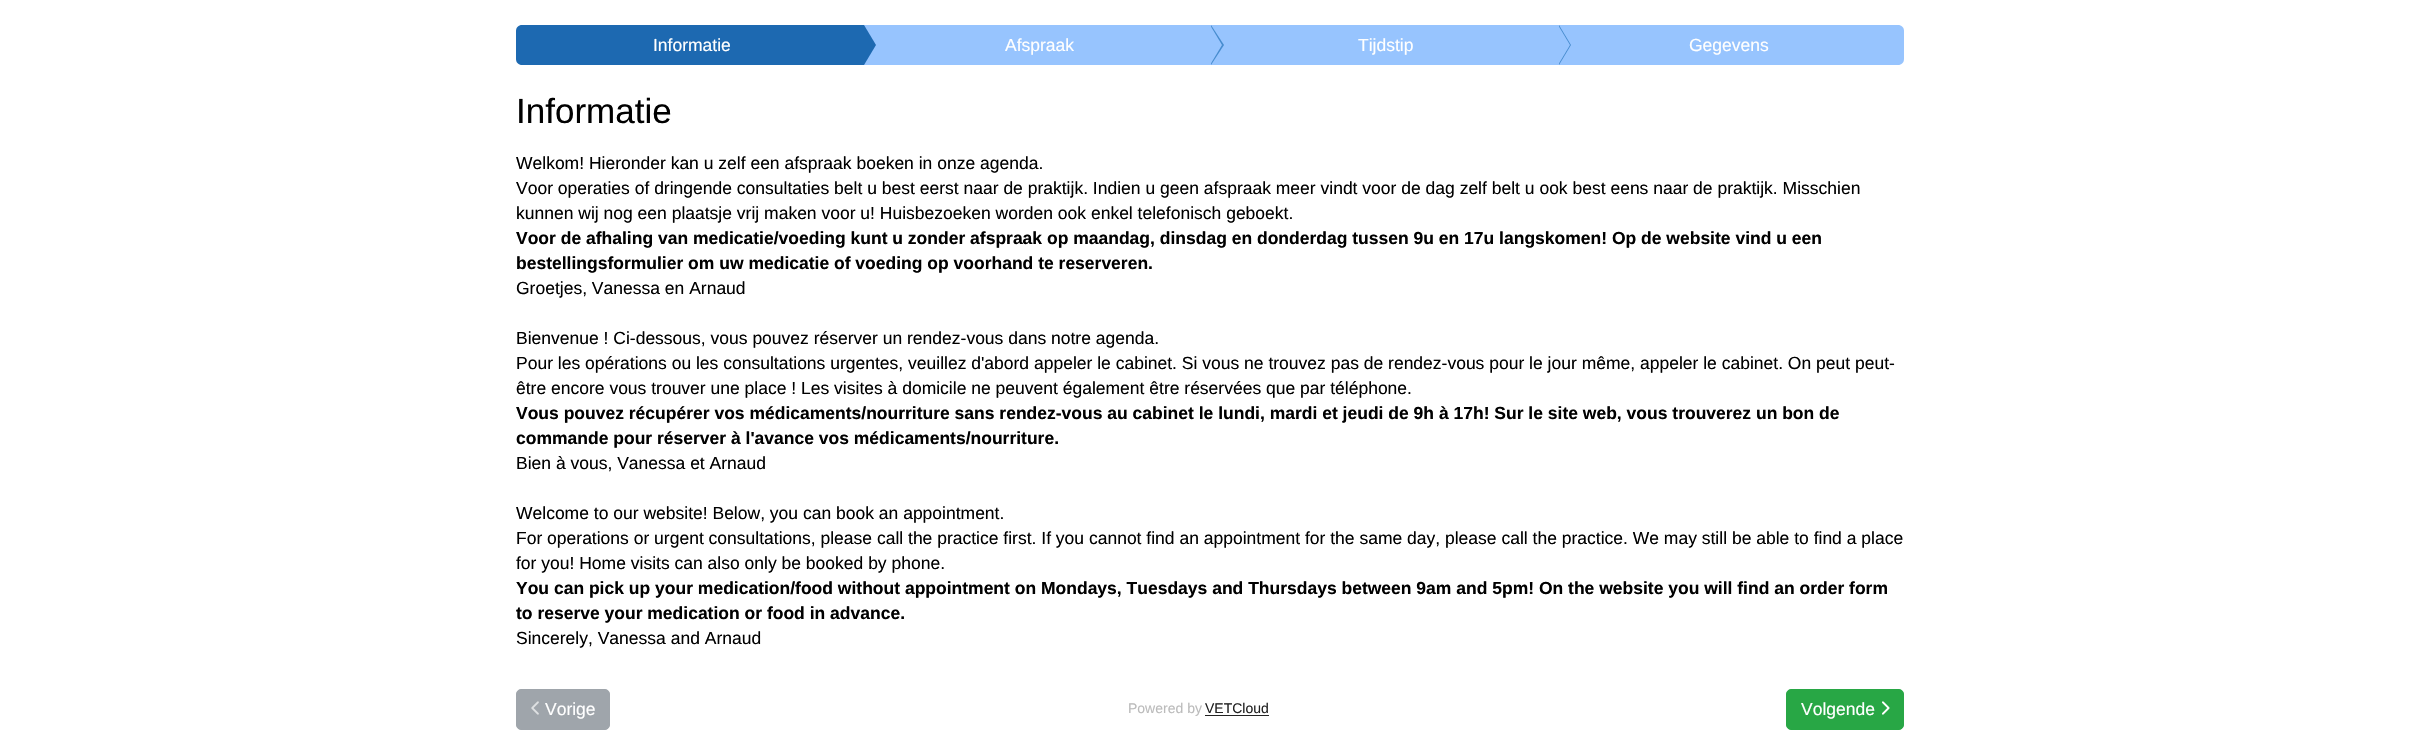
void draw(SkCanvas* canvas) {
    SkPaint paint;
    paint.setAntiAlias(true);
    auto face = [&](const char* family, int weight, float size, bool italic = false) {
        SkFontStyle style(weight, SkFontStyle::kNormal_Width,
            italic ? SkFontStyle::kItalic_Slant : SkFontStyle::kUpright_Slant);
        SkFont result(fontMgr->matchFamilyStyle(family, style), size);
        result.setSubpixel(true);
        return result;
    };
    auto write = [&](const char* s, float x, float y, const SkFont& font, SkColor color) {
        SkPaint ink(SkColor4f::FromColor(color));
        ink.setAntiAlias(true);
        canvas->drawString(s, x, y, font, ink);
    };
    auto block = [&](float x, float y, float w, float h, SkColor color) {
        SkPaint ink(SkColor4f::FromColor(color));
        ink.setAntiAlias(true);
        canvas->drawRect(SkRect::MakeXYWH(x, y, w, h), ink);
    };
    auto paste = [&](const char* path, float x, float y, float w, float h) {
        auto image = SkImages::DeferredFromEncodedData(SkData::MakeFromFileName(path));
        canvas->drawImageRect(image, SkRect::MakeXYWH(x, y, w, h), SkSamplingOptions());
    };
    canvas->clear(SK_ColorWHITE);
    paint.setColor(SkColorSetRGB(29, 105, 177));
    canvas->drawPath(SkPathBuilder().moveTo(522, 25).lineTo(864, 25).lineTo(864, 65).lineTo(522, 65).cubicTo(518.5f, 65, 516, 62.5f, 516, 59).lineTo(516, 31).cubicTo(516, 27.5f, 518.5f, 25, 522, 25).close().detach(), paint);
    auto kFont1 = face("Liberation Sans", 400, 17.5f);
    write("Informatie", 653, 51, kFont1, SK_ColorWHITE);
    block(864, 25, 694, 40, SkColorSetRGB(151, 196, 254));
    canvas->drawPath(SkPathBuilder().moveTo(864, 65).lineTo(864, 25).lineTo(876, 45).close().detach(), paint);
    paint.setColor(SkColorSetRGB(70, 140, 207));
    canvas->drawPath(SkPathBuilder().moveTo(1211, 65).lineTo(1211, 25).lineTo(1224, 45).close().detach(), paint);
    paint.setColor(SkColorSetRGB(151, 196, 254));
    canvas->drawPath(SkPathBuilder().moveTo(1210, 65).lineTo(1210, 25).lineTo(1222, 45).close().detach(), paint);
    write("Afspraak", 1005, 51, kFont1, SK_ColorWHITE);
    canvas->drawPath(SkPathBuilder().moveTo(1558, 25).lineTo(1898, 25).cubicTo(1901.5f, 25, 1904, 27.5f, 1904, 31).lineTo(1904, 59).cubicTo(1904, 62.5f, 1901.5f, 65, 1898, 65).lineTo(1558, 65).close().detach(), paint);
    paint.setColor(SkColorSetRGB(70, 140, 207));
    canvas->drawPath(SkPathBuilder().moveTo(1559, 65).lineTo(1559, 25).lineTo(1571, 45).close().detach(), paint);
    paint.setColor(SkColorSetRGB(151, 196, 254));
    canvas->drawPath(SkPathBuilder().moveTo(1558, 65).lineTo(1558, 25).lineTo(1570, 45).close().detach(), paint);
    write("Tijdstip", 1358, 51, kFont1, SK_ColorWHITE);
    write("Gegevens", 1689, 51, kFont1, SK_ColorWHITE);
    auto kFont2 = face("Liberation Sans", 400, 35);
    write("Informatie", 516, 123, kFont2, SK_ColorBLACK);
    write("Welkom! Hieronder kan u zelf een afspraak boeken in onze agenda.", 516, 169, kFont1, SK_ColorBLACK);
    write("Voor operaties of dringende consultaties belt u best eerst naar de praktijk. Indien u geen afspraak meer vindt voor de dag zelf belt u ook best eens naar de praktijk. Misschien", 516, 194, kFont1, SK_ColorBLACK);
    write("kunnen wij nog een plaatsje vrij maken voor u! Huisbezoeken worden ook enkel telefonisch geboekt.", 516, 219, kFont1, SK_ColorBLACK);
    auto kFont3 = face("Liberation Sans", 700, 17.5f);
    write("Voor de afhaling van medicatie/voeding kunt u zonder afspraak op maandag, dinsdag en donderdag tussen 9u en 17u langskomen! Op de website vind u een", 516, 244, kFont3, SK_ColorBLACK);
    write("bestellingsformulier om uw medicatie of voeding op voorhand te reserveren.", 516, 269, kFont3, SK_ColorBLACK);
    write("Groetjes, Vanessa en Arnaud", 516, 294, kFont1, SK_ColorBLACK);
    write("Bienvenue ! Ci-dessous, vous pouvez réserver un rendez-vous dans notre agenda.", 516, 344, kFont1, SK_ColorBLACK);
    write("Pour les opérations ou les consultations urgentes, veuillez d'abord appeler le cabinet. Si vous ne trouvez pas de rendez-vous pour le jour même, appeler le cabinet. On peut peut-", 516, 369, kFont1, SK_ColorBLACK);
    write("être encore vous trouver une place ! Les visites à domicile ne peuvent également être réservées que par téléphone.", 516, 394, kFont1, SK_ColorBLACK);
    write("Vous pouvez récupérer vos médicaments/nourriture sans rendez-vous au cabinet le lundi, mardi et jeudi de 9h à 17h! Sur le site web, vous trouverez un bon de", 516, 419, kFont3, SK_ColorBLACK);
    write("commande pour réserver à l'avance vos médicaments/nourriture.", 516, 444, kFont3, SK_ColorBLACK);
    write("Bien à vous, Vanessa et Arnaud", 516, 469, kFont1, SK_ColorBLACK);
    write("Welcome to our website! Below, you can book an appointment.", 516, 519, kFont1, SK_ColorBLACK);
    write("For operations or urgent consultations, please call the practice first. If you cannot find an appointment for the same day, please call the practice. We may still be able to find a place", 516, 544, kFont1, SK_ColorBLACK);
    write("for you! Home visits can also only be booked by phone.", 516, 569, kFont1, SK_ColorBLACK);
    write("You can pick up your medication/food without appointment on Mondays, Tuesdays and Thursdays between 9am and 5pm! On the website you will find an order form", 516, 594, kFont3, SK_ColorBLACK);
    write("to reserve your medication or food in advance.", 516, 619, kFont3, SK_ColorBLACK);
    write("Sincerely, Vanessa and Arnaud", 516, 644, kFont1, SK_ColorBLACK);
    paint.setColor(SkColorSetRGB(159, 165, 171));
    canvas->drawRoundRect(SkRect::MakeXYWH(516.5f, 689.5f, 93, 40), 4.5f, 4.5f, paint);
    paint.setStyle(SkPaint::kStroke_Style);
    paint.setStrokeWidth(1);
    canvas->drawRoundRect(SkRect::MakeXYWH(516.5f, 689.5f, 93, 40), 4.5f, 4.5f, paint);
    paste("pic1.png", 531, 701, 8, 14);
    write("Vorige", 545, 715, kFont1, SK_ColorWHITE);
    auto kFont4 = face("Liberation Sans", 400, 14);
    write("Powered by", 1128, 713, kFont4, SkColorSetRGB(187, 187, 187));
    write("VETCloud", 1205, 713, kFont4, SkColorSetRGB(34, 34, 34));
    block(1205, 715, 64, 1, SkColorSetRGB(34, 34, 34));
    paint.setStyle(SkPaint::kFill_Style);
    paint.setColor(SkColorSetRGB(40, 167, 69));
    canvas->drawRoundRect(SkRect::MakeXYWH(1786.5f, 689.5f, 117, 40), 4.5f, 4.5f, paint);
    paint.setStyle(SkPaint::kStroke_Style);
    canvas->drawRoundRect(SkRect::MakeXYWH(1786.5f, 689.5f, 117, 40), 4.5f, 4.5f, paint);
    write("Volgende", 1801, 715, kFont1, SK_ColorWHITE);
    paste("pic2.png", 1882, 701, 8, 14);
}
